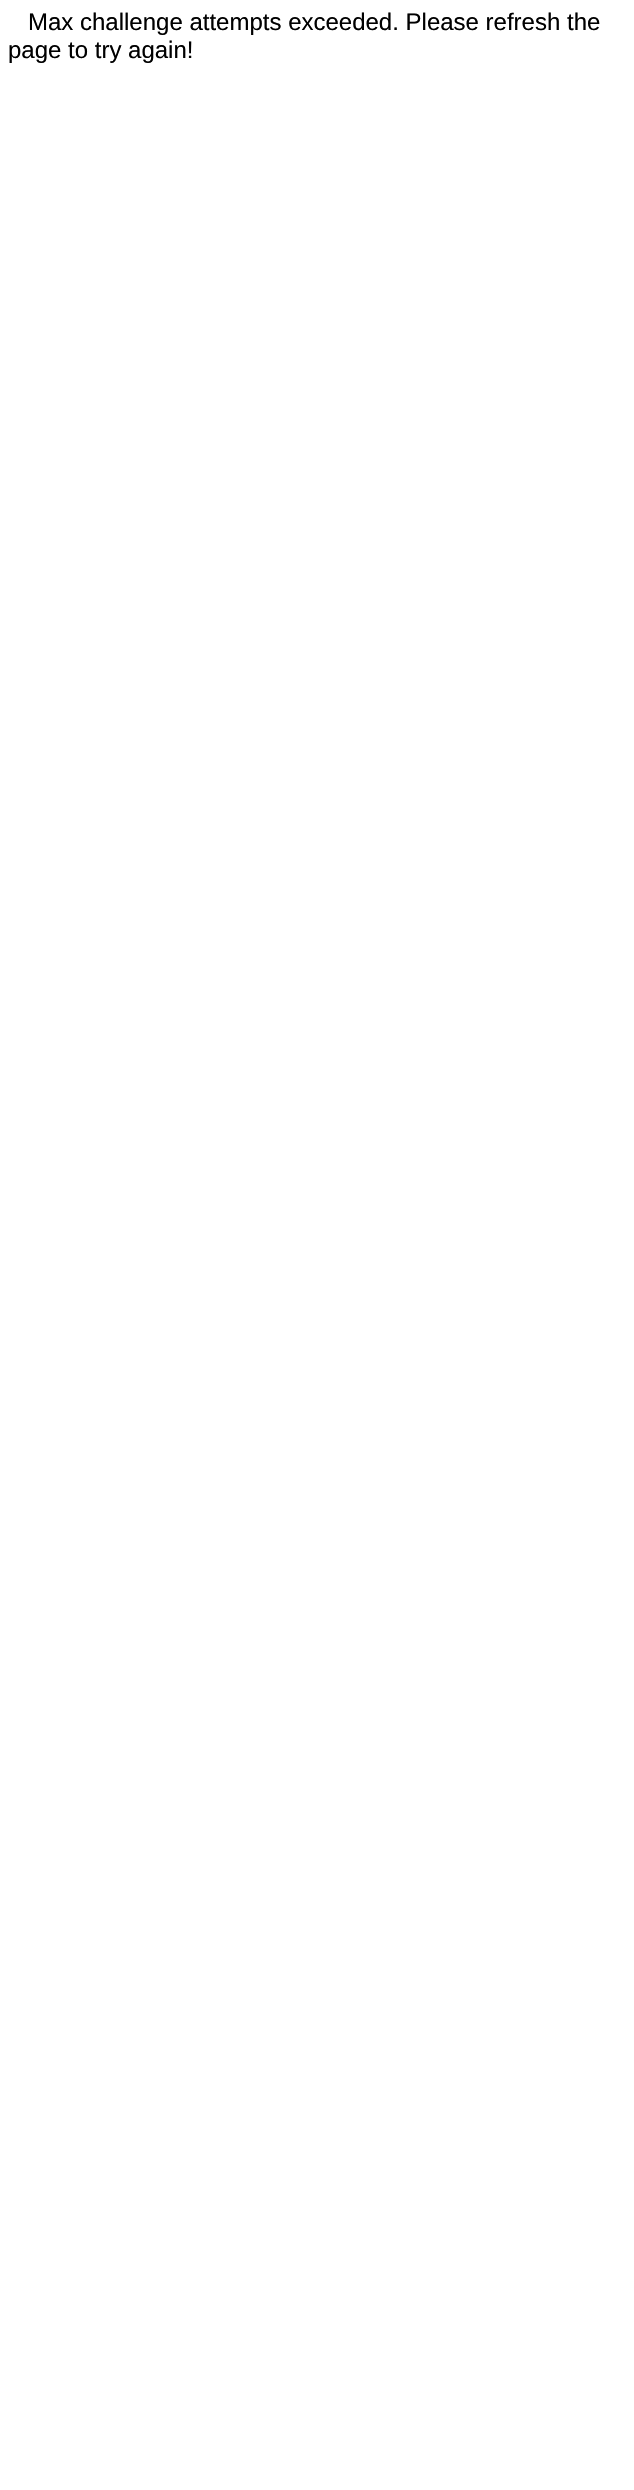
void draw(SkCanvas* canvas) {
    SkPaint paint;
    paint.setAntiAlias(true);
    auto face = [&](const char* family, int weight, float size, bool italic = false) {
        SkFontStyle style(weight, SkFontStyle::kNormal_Width,
            italic ? SkFontStyle::kItalic_Slant : SkFontStyle::kUpright_Slant);
        SkFont result(fontMgr->matchFamilyStyle(family, style), size);
        result.setSubpixel(true);
        return result;
    };
    auto write = [&](const char* s, float x, float y, const SkFont& font, SkColor color) {
        SkPaint ink(SkColor4f::FromColor(color));
        ink.setAntiAlias(true);
        canvas->drawString(s, x, y, font, ink);
    };
    canvas->clear(SK_ColorWHITE);
    auto kFont1 = face("Liberation Sans", 400, 24);
    write("Max challenge attempts exceeded. Please refresh the", 28, 30, kFont1, SK_ColorBLACK);
    write("page to try again!", 8, 58, kFont1, SK_ColorBLACK);
}
